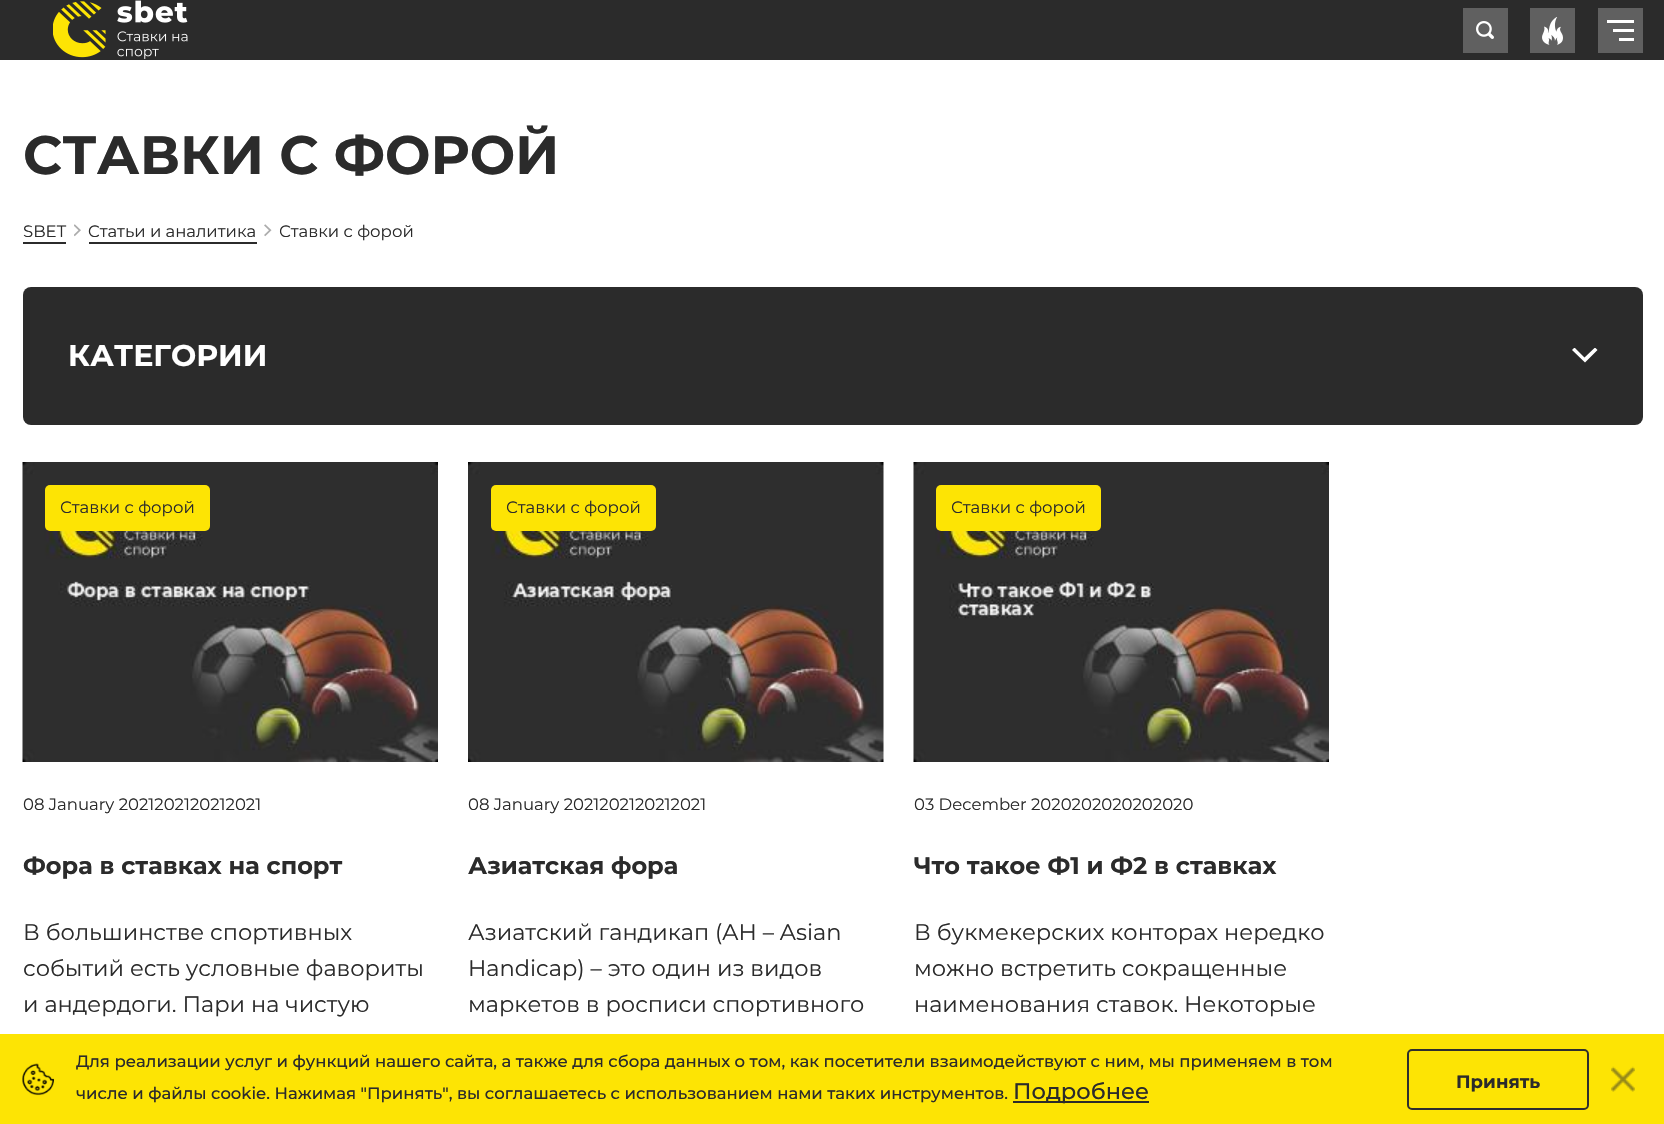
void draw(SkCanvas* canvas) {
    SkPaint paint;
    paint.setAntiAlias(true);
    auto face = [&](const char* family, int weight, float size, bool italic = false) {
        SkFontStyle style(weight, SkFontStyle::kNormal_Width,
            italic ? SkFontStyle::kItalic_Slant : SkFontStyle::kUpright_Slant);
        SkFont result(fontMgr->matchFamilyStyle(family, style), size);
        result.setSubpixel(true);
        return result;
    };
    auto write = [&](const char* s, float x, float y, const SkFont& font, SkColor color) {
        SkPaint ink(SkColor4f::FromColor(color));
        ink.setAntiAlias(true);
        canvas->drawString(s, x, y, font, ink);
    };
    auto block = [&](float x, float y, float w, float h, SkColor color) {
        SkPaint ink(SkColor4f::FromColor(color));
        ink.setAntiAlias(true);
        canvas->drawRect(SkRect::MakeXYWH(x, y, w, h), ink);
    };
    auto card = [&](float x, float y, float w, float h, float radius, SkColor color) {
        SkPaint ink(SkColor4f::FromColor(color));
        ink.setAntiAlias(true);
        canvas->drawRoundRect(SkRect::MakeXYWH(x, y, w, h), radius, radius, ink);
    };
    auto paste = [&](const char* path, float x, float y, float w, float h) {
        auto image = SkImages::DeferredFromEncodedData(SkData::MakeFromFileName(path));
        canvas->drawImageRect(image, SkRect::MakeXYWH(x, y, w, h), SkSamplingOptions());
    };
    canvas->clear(SK_ColorWHITE);
    block(0, 0, 1664, 60, SkColorSetRGB(43, 43, 43));
    paste("pic1.png", 53, 0, 135, 59);
    block(1463, 8, 45, 45, SkColorSetRGB(96, 96, 96));
    paste("pic2.png", 1476, 21, 18, 18);
    block(1530, 8, 45, 45, SkColorSetRGB(96, 96, 96));
    paste("pic3.png", 1542, 17, 21, 28);
    block(1598, 8, 45, 45, SkColorSetRGB(96, 96, 96));
    block(1607, 20, 27, 3, SK_ColorWHITE);
    block(1613, 29, 21, 3, SK_ColorWHITE);
    block(1619, 38, 15, 3, SK_ColorWHITE);
    auto kFont1 = face("Montserrat", 700, 54);
    write("СТАВКИ С ФОРОЙ", 23, 174, kFont1, SkColorSetRGB(43, 43, 43));
    auto kFont2 = face("Montserrat", 400, 16.5f);
    write("SBET", 23, 237, kFont2, SkColorSetRGB(43, 43, 43));
    block(23, 242, 43, 2, SkColorSetRGB(43, 43, 43));
    paste("pic4.png", 74, 224, 7, 13);
    write("Cтатьи и аналитика", 88, 237, kFont2, SkColorSetRGB(43, 43, 43));
    block(89, 242, 168, 2, SkColorSetRGB(43, 43, 43));
    paste("pic5.png", 264, 224, 8, 13);
    write("Ставки с форой", 279, 237, kFont2, SkColorSetRGB(43, 43, 43));
    card(23, 287, 1620, 138, 8, SkColorSetRGB(43, 43, 43));
    auto kFont3 = face("Montserrat", 700, 30);
    write("КАТЕГОРИИ", 68, 366, kFont3, SK_ColorWHITE);
    canvas->save();
    canvas->clipRect(SkRect::MakeXYWH(1572, 348, 26, 15));
    paint.setColor(SK_ColorWHITE);
    canvas->drawPath(SkPathBuilder().moveTo(1597.5f, 350).lineTo(1595, 347.5f).lineTo(1584.5f, 357.5f).lineTo(1574.5f, 347.5f).lineTo(1572, 350).lineTo(1585, 362.5f).close().detach(), paint);
    canvas->restore();
    paste("pic6.png", 22, 462, 416, 300);
    card(45, 485, 165, 46, 5, SkColorSetRGB(253, 228, 4));
    write("Ставки с форой", 60, 513, kFont2, SkColorSetRGB(43, 43, 43));
    write("08 January 2021202120212021", 23, 810, kFont2, SkColorSetRGB(43, 43, 43));
    auto kFont4 = face("Montserrat", 700, 24);
    write("Фора в ставках на спорт", 23, 874, kFont4, SkColorSetRGB(43, 43, 43));
    auto kFont5 = face("Montserrat", 400, 22.5f);
    write("В большинстве спортивных", 23, 940, kFont5, SkColorSetRGB(43, 43, 43));
    write("событий есть условные фавориты", 23, 976, kFont5, SkColorSetRGB(43, 43, 43));
    write("и андердоги. Пари на чистую", 23, 1012, kFont5, SkColorSetRGB(43, 43, 43));
    paste("pic7.png", 468, 462, 416, 300);
    card(491, 485, 165, 46, 5, SkColorSetRGB(253, 228, 4));
    write("Ставки с форой", 506, 513, kFont2, SkColorSetRGB(43, 43, 43));
    write("08 January 2021202120212021", 468, 810, kFont2, SkColorSetRGB(43, 43, 43));
    write("Азиатская фора", 468, 874, kFont4, SkColorSetRGB(43, 43, 43));
    write("Азиатский гандикап (AH – Asian", 468, 940, kFont5, SkColorSetRGB(43, 43, 43));
    write("Handicap) – это один из видов", 468, 976, kFont5, SkColorSetRGB(43, 43, 43));
    write("маркетов в росписи спортивного", 468, 1012, kFont5, SkColorSetRGB(43, 43, 43));
    paste("pic8.png", 913, 462, 416, 300);
    card(936, 485, 165, 46, 5, SkColorSetRGB(253, 228, 4));
    write("Ставки с форой", 951, 513, kFont2, SkColorSetRGB(43, 43, 43));
    write("03 December 2020202020202020", 914, 810, kFont2, SkColorSetRGB(43, 43, 43));
    write("Что такое Ф1 и Ф2 в ставках", 914, 874, kFont4, SkColorSetRGB(43, 43, 43));
    write("В букмекерских конторах нередко", 914, 940, kFont5, SkColorSetRGB(43, 43, 43));
    write("можно встретить сокращенные", 914, 976, kFont5, SkColorSetRGB(43, 43, 43));
    write("наименования ставок. Некоторые", 914, 1012, kFont5, SkColorSetRGB(43, 43, 43));
    block(0, 1034, 1664, 90, SkColorSetRGB(253, 228, 4));
    paste("pic9.png", 22, 1063, 32, 33);
    auto kFont6 = face("Montserrat", 500, 16.5f);
    write("Для реализации услуг и функций нашего сайта, а также для сбора данных о том, как посетители взаимодействуют с ним, мы применяем в том", 76, 1067, kFont6, SkColorSetRGB(43, 43, 43));
    write("числе и файлы cookie. Нажимая \"Принять\", вы соглашаетесь с использованием нами таких инструментов.", 76, 1099, kFont6, SkColorSetRGB(43, 43, 43));
    block(1013, 1101, 136, 2, SkColorSetRGB(43, 43, 43));
    auto kFont7 = face("Montserrat", 500, 22.5f);
    write("Подробнее", 1013, 1099, kFont7, SkColorSetRGB(43, 43, 43));
    paint.setStyle(SkPaint::kStroke_Style);
    paint.setStrokeWidth(2);
    paint.setColor(SkColorSetRGB(46, 46, 46));
    canvas->drawRoundRect(SkRect::MakeXYWH(1408, 1050, 180, 59), 4, 4, paint);
    auto kFont8 = face("Montserrat", 700, 18);
    write("Принять", 1456, 1088, kFont8, SkColorSetRGB(43, 43, 43));
    paste("pic10.png", 1611, 1066, 24, 26);
}
